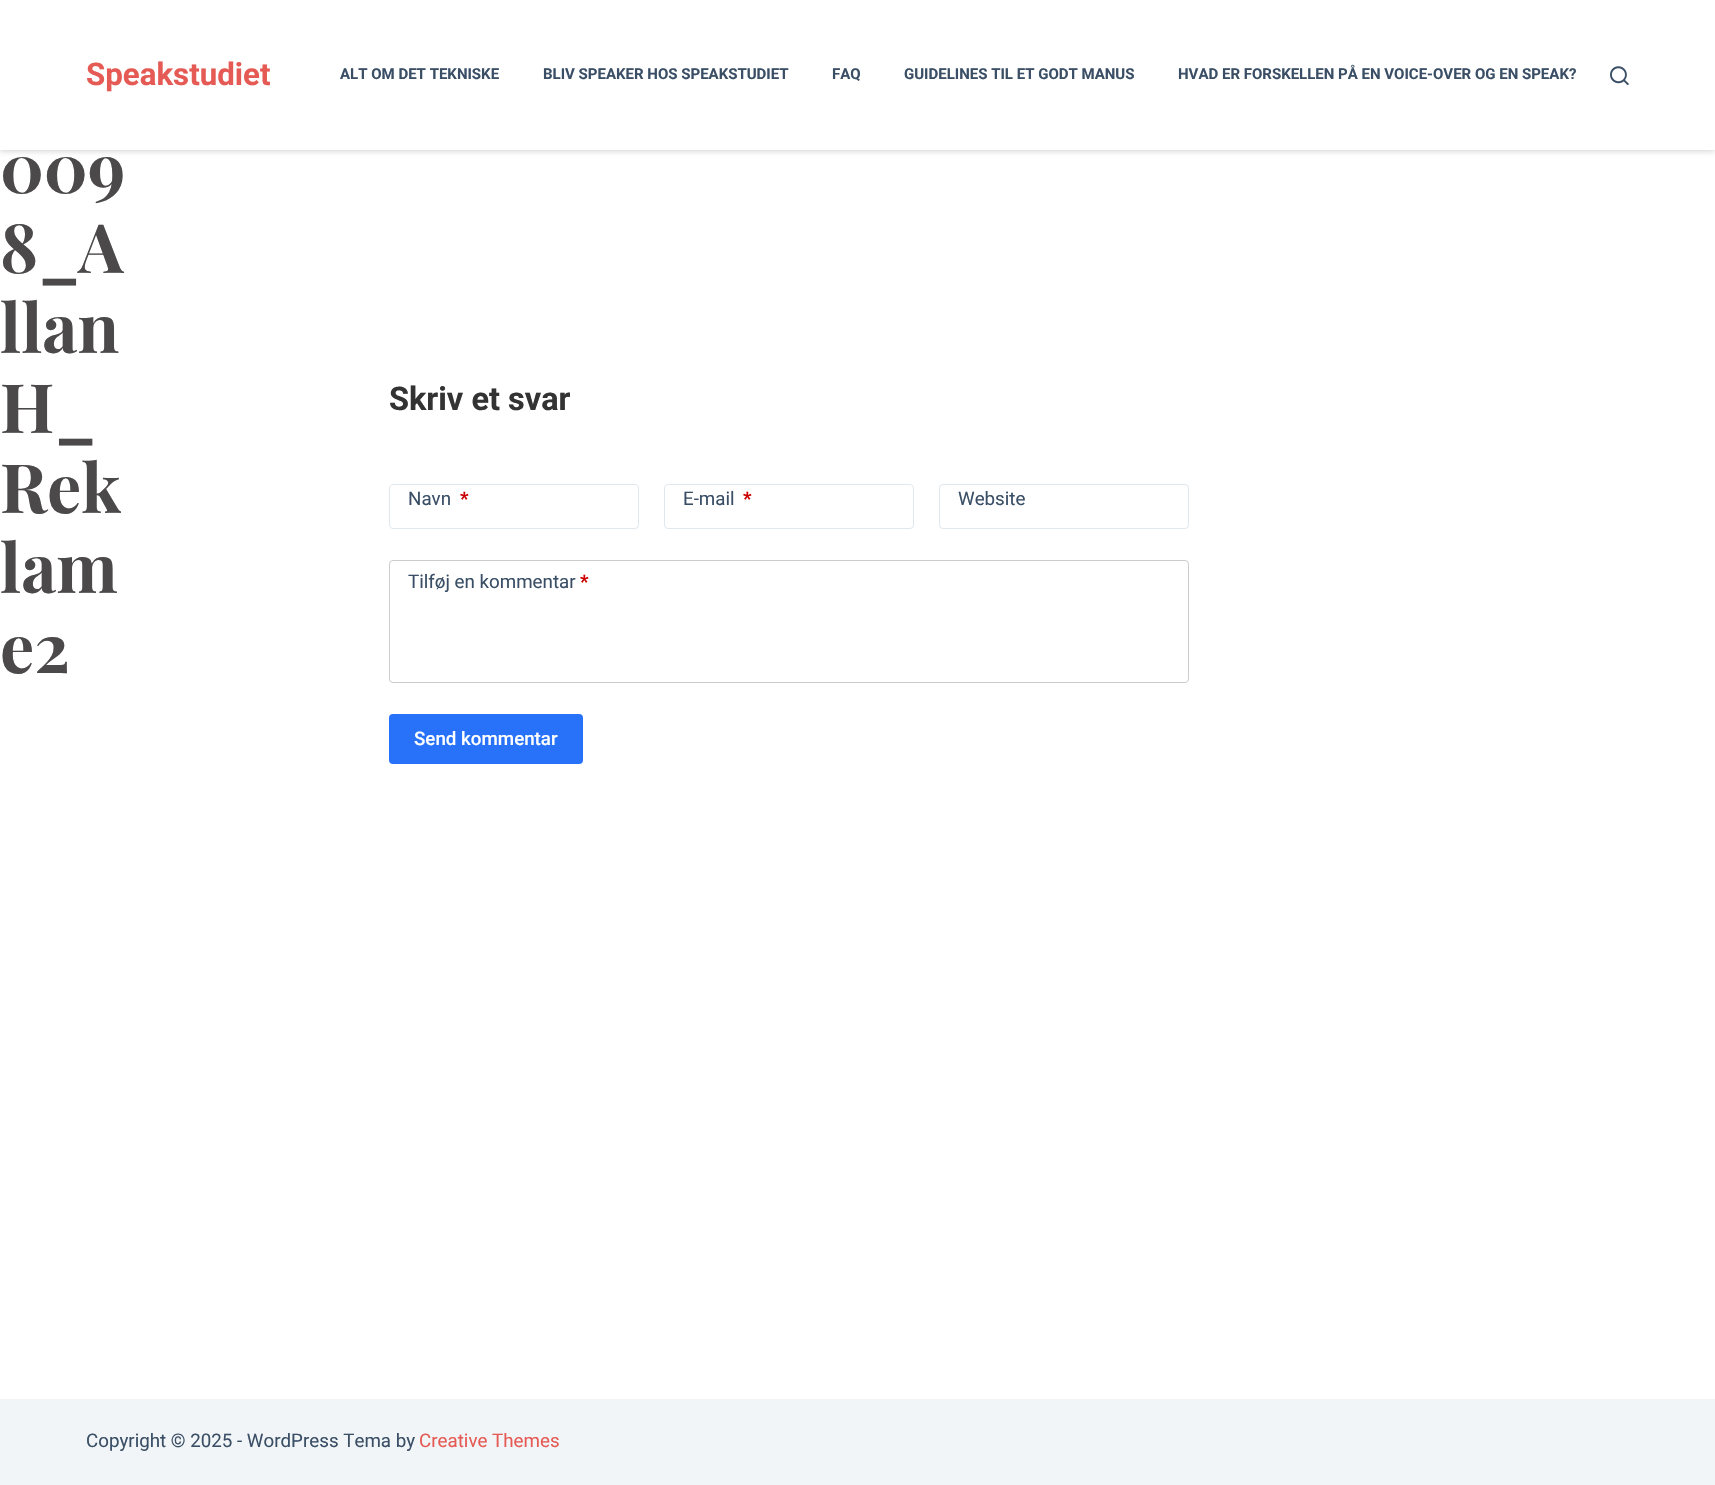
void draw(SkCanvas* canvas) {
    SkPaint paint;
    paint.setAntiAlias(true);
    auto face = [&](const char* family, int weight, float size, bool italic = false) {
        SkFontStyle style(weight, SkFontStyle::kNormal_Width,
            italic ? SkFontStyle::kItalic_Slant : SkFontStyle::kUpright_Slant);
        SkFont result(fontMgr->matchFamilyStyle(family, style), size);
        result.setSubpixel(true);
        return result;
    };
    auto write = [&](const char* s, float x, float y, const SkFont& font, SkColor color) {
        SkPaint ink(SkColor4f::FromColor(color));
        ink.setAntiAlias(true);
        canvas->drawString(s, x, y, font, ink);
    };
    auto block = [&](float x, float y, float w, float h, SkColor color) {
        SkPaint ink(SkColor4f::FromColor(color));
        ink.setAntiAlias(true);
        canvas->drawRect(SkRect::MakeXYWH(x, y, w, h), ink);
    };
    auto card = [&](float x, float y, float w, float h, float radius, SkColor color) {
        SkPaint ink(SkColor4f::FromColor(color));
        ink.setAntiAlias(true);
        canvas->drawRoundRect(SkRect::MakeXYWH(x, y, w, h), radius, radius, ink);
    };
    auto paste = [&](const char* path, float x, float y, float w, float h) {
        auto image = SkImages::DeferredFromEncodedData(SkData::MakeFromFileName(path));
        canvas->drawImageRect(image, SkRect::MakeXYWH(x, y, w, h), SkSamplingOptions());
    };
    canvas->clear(SK_ColorWHITE);
    paint.setColor(SkColorSetARGB(77, 100, 100, 100));
    paint.setMaskFilter(SkMaskFilter::MakeBlur(kNormal_SkBlurStyle, 3));
    canvas->drawRect(SkRect::MakeXYWH(0, 1, 1715, 150), paint);
    paint.setMaskFilter(nullptr);
    block(0, 0, 1715, 150, SK_ColorWHITE);
    auto kFont1 = face("Roboto", 700, 31.25f);
    write("Speakstudiet", 86, 85, kFont1, SkColorSetRGB(229, 90, 84));
    auto kFont2 = face("Roboto", 700, 15);
    write("ALT OM DET TEKNISKE", 340, 79, kFont2, SkColorSetRGB(58, 79, 102));
    write("BLIV SPEAKER HOS SPEAKSTUDIET", 543, 79, kFont2, SkColorSetRGB(58, 79, 102));
    write("FAQ", 832, 79, kFont2, SkColorSetRGB(58, 79, 102));
    write("GUIDELINES TIL ET GODT MANUS", 904, 79, kFont2, SkColorSetRGB(58, 79, 102));
    write("HVAD ER FORSKELLEN PÅ EN VOICE-OVER OG EN SPEAK?", 1178, 79, kFont2, SkColorSetRGB(58, 79, 102));
    paste("pic1.png", 1610, 66, 19, 19);
    auto kFont3 = face("Playfair Display", 700, 68);
    write("009", 0, 193, kFont3, SkColorSetRGB(75, 73, 73));
    write("8_A", 0, 273, kFont3, SkColorSetRGB(75, 73, 73));
    write("llan", 0, 353, kFont3, SkColorSetRGB(75, 73, 73));
    write("H_", 0, 433, kFont3, SkColorSetRGB(75, 73, 73));
    write("Rek", 0, 513, kFont3, SkColorSetRGB(75, 73, 73));
    write("lam", 0, 593, kFont3, SkColorSetRGB(75, 73, 73));
    write("e2", 0, 673, kFont3, SkColorSetRGB(75, 73, 73));
    auto kFont4 = face("Roboto", 700, 32.5f);
    write("Skriv et svar", 389, 410, kFont4, SkColorSetRGB(51, 51, 51));
    paint.setStyle(SkPaint::kStroke_Style);
    paint.setStrokeWidth(1);
    paint.setColor(SkColorSetRGB(225, 232, 237));
    canvas->drawRoundRect(SkRect::MakeXYWH(389.5f, 484.5f, 249, 44), 3.5f, 3.5f, paint);
    auto kFont5 = face("Roboto", 400, 18.75f);
    write("Navn", 408, 505, kFont5, SkColorSetRGB(58, 79, 102));
    auto kFont6 = face("Roboto", 700, 18.75f);
    write("*", 460, 505, kFont6, SkColorSetRGB(204, 0, 0));
    canvas->drawRoundRect(SkRect::MakeXYWH(664.5f, 484.5f, 249, 44), 3.5f, 3.5f, paint);
    write("E-mail", 683, 505, kFont5, SkColorSetRGB(58, 79, 102));
    write("*", 743, 505, kFont6, SkColorSetRGB(204, 0, 0));
    canvas->drawRoundRect(SkRect::MakeXYWH(939.5f, 484.5f, 249, 44), 3.5f, 3.5f, paint);
    write("Website", 958, 505, kFont5, SkColorSetRGB(58, 79, 102));
    paint.setColor(SkColorSetRGB(204, 204, 204));
    canvas->drawRoundRect(SkRect::MakeXYWH(389.5f, 560.5f, 799, 122), 3.5f, 3.5f, paint);
    write("Tilføj en kommentar", 408, 588, kFont5, SkColorSetRGB(58, 79, 102));
    write("*", 580, 588, kFont6, SkColorSetRGB(204, 0, 0));
    card(389, 714, 194, 50, 4, SkColorSetRGB(40, 114, 250));
    auto kFont7 = face("Roboto", 500, 18.75f);
    write("Send kommentar", 414, 745, kFont7, SK_ColorWHITE);
    block(0, 1399, 1715, 86, SkColorSetRGB(242, 245, 247));
    write("Copyright © 2025 - WordPress Tema by", 86, 1447, kFont5, SkColorSetRGB(58, 79, 102));
    write("Creative Themes", 419, 1447, kFont5, SkColorSetRGB(229, 90, 84));
}
